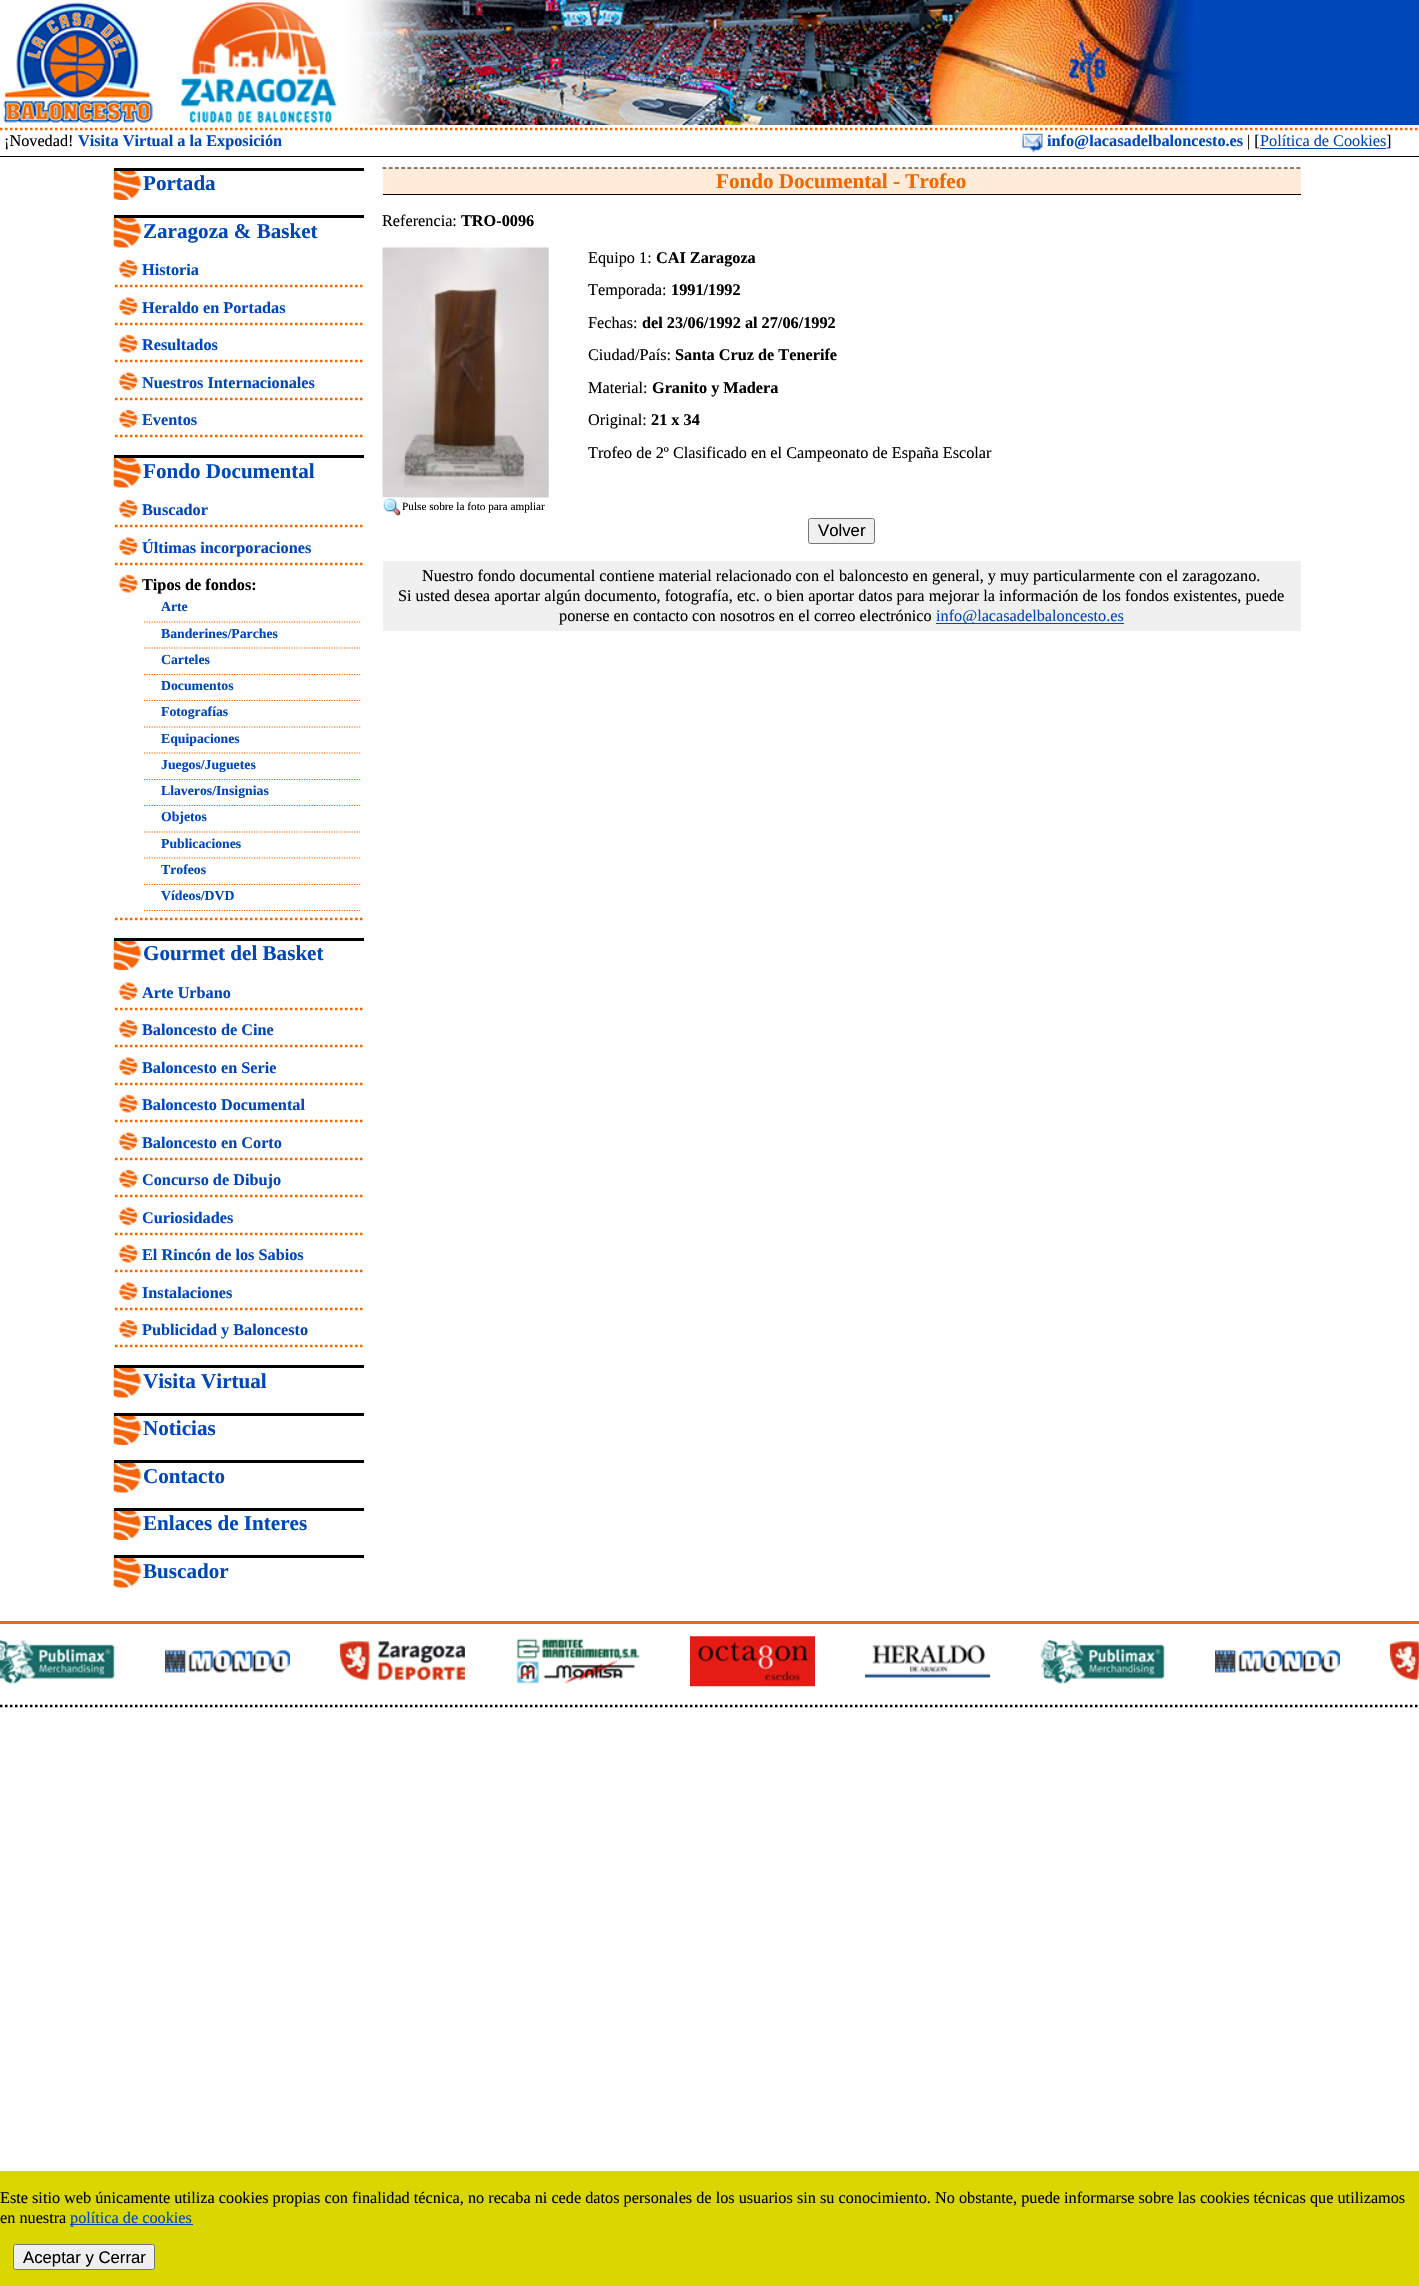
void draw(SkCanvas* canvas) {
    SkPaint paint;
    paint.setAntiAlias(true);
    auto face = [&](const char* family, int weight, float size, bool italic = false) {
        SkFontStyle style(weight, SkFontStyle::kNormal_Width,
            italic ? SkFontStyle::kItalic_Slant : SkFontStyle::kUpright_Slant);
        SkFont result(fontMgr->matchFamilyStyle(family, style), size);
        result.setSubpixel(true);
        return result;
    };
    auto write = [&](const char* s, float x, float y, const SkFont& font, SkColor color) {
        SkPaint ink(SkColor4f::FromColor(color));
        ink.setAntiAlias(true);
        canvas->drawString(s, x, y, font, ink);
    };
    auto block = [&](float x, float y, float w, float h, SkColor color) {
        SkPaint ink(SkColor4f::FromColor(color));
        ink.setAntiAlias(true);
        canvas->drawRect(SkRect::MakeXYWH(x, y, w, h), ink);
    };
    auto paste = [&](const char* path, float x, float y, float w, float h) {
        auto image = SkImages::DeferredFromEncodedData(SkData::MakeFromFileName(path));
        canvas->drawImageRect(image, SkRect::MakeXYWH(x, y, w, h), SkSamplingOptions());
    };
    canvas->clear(SK_ColorWHITE);
    block(1193, 0, 226, 125, SkColorSetRGB(0, 71, 186));
    paste("pic1.png", 0, 0, 1193, 125);
    paint.setStyle(SkPaint::kStroke_Style);
    paint.setStrokeWidth(2.5f);
    paint.setColor(SkColorSetRGB(245, 102, 0));
    paint.setPathEffect(SkDashPathEffect::Make({{2.5f, 2.5f}}, 0));
    canvas->drawPath(SkPathBuilder().moveTo(0, 129).lineTo(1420, 129).detach(), paint);
    paint.setPathEffect(nullptr);
    auto kFont1 = face("Liberation Serif", 400, 16.25f);
    write("¡Novedad!", 4, 146, kFont1, SK_ColorBLACK);
    auto kFont2 = face("Liberation Serif", 700, 16.25f);
    write("Visita Virtual a la Exposición", 78, 146, kFont2, SkColorSetRGB(0, 71, 186));
    paste("pic2.png", 1022, 133, 21, 20);
    write("info@lacasadelbaloncesto.es", 1047, 146, kFont2, SkColorSetRGB(0, 71, 186));
    write("| [", 1247, 146, kFont1, SK_ColorBLACK);
    write("Política de Cookies", 1260, 146, kFont1, SkColorSetRGB(0, 71, 186));
    block(1260, 148, 126, 1, SkColorSetRGB(0, 71, 186));
    write("]", 1386, 146, kFont1, SK_ColorBLACK);
    block(0, 156, 1419, 1, SK_ColorBLACK);
    paste("pic3.png", 113, 170, 29, 30);
    block(114, 168, 250, 3, SK_ColorBLACK);
    auto kFont3 = face("Liberation Serif", 700, 21.1f);
    write("Portada", 143, 190, kFont3, SkColorSetRGB(0, 71, 186));
    paste("pic4.png", 113, 217, 29, 31);
    block(114, 215, 250, 3, SK_ColorBLACK);
    write("Zaragoza & Basket", 143, 238, kFont3, SkColorSetRGB(0, 71, 186));
    paste("pic5.png", 118, 260, 20, 18);
    paint.setPathEffect(SkDashPathEffect::Make({{2.5f, 2.5f}}, 0));
    canvas->drawPath(SkPathBuilder().moveTo(115, 286).lineTo(362.5f, 286).detach(), paint);
    paint.setPathEffect(nullptr);
    write("Historia", 142, 275, kFont2, SkColorSetRGB(0, 71, 186));
    paste("pic6.png", 118, 297, 20, 18);
    paint.setPathEffect(SkDashPathEffect::Make({{2.5f, 2.5f}}, 0));
    canvas->drawPath(SkPathBuilder().moveTo(115, 324).lineTo(362.5f, 324).detach(), paint);
    paint.setPathEffect(nullptr);
    write("Heraldo en Portadas", 142, 313, kFont2, SkColorSetRGB(0, 71, 186));
    paste("pic5.png", 118, 335, 20, 18);
    paint.setPathEffect(SkDashPathEffect::Make({{2.5f, 2.5f}}, 0));
    canvas->drawPath(SkPathBuilder().moveTo(115, 361).lineTo(362.5f, 361).detach(), paint);
    paint.setPathEffect(nullptr);
    write("Resultados", 142, 350, kFont2, SkColorSetRGB(0, 71, 186));
    paste("pic6.png", 118, 372, 20, 18);
    paint.setPathEffect(SkDashPathEffect::Make({{2.5f, 2.5f}}, 0));
    canvas->drawPath(SkPathBuilder().moveTo(115, 399).lineTo(362.5f, 399).detach(), paint);
    paint.setPathEffect(nullptr);
    write("Nuestros Internacionales", 142, 388, kFont2, SkColorSetRGB(0, 71, 186));
    paste("pic5.png", 118, 410, 20, 18);
    paint.setPathEffect(SkDashPathEffect::Make({{2.5f, 2.5f}}, 0));
    canvas->drawPath(SkPathBuilder().moveTo(115, 436).lineTo(362.5f, 436).detach(), paint);
    paint.setPathEffect(nullptr);
    write("Eventos", 142, 425, kFont2, SkColorSetRGB(0, 71, 186));
    paste("pic4.png", 113, 457, 29, 31);
    block(114, 455, 250, 3, SK_ColorBLACK);
    write("Fondo Documental", 143, 478, kFont3, SkColorSetRGB(0, 71, 186));
    paste("pic5.png", 118, 500, 20, 18);
    paint.setPathEffect(SkDashPathEffect::Make({{2.5f, 2.5f}}, 0));
    canvas->drawPath(SkPathBuilder().moveTo(115, 526).lineTo(362.5f, 526).detach(), paint);
    paint.setPathEffect(nullptr);
    write("Buscador", 142, 515, kFont2, SkColorSetRGB(0, 71, 186));
    paste("pic6.png", 118, 537, 20, 18);
    paint.setPathEffect(SkDashPathEffect::Make({{2.5f, 2.5f}}, 0));
    canvas->drawPath(SkPathBuilder().moveTo(115, 564).lineTo(362.5f, 564).detach(), paint);
    paint.setPathEffect(nullptr);
    write("Últimas incorporaciones", 142, 553, kFont2, SkColorSetRGB(0, 71, 186));
    paste("pic5.png", 118, 575, 20, 18);
    paint.setPathEffect(SkDashPathEffect::Make({{2.5f, 2.5f}}, 0));
    canvas->drawPath(SkPathBuilder().moveTo(115, 919).lineTo(362.5f, 919).detach(), paint);
    paint.setPathEffect(nullptr);
    write("Tipos de fondos:", 142, 590, kFont2, SK_ColorBLACK);
    paint.setStrokeWidth(1.2f);
    paint.setPathEffect(SkDashPathEffect::Make({{1.25f, 1.25f}}, 0));
    canvas->drawPath(SkPathBuilder().moveTo(144, 622).lineTo(361, 622).detach(), paint);
    paint.setPathEffect(nullptr);
    auto kFont4 = face("Liberation Serif", 700, 13.75f);
    write("Arte", 161, 611, kFont4, SkColorSetRGB(0, 71, 186));
    paint.setPathEffect(SkDashPathEffect::Make({{1.25f, 1.25f}}, 0));
    canvas->drawPath(SkPathBuilder().moveTo(144, 648).lineTo(361, 648).detach(), paint);
    paint.setPathEffect(nullptr);
    write("Banderines/Parches", 161, 638, kFont4, SkColorSetRGB(0, 71, 186));
    paint.setPathEffect(SkDashPathEffect::Make({{1.25f, 1.25f}}, 0));
    canvas->drawPath(SkPathBuilder().moveTo(144, 674.5f).lineTo(361, 674.5f).detach(), paint);
    paint.setPathEffect(nullptr);
    write("Carteles", 161, 664, kFont4, SkColorSetRGB(0, 71, 186));
    paint.setPathEffect(SkDashPathEffect::Make({{1.25f, 1.25f}}, 0));
    canvas->drawPath(SkPathBuilder().moveTo(144, 700.5f).lineTo(361, 700.5f).detach(), paint);
    paint.setPathEffect(nullptr);
    write("Documentos", 161, 690, kFont4, SkColorSetRGB(0, 71, 186));
    paint.setPathEffect(SkDashPathEffect::Make({{1.25f, 1.25f}}, 0));
    canvas->drawPath(SkPathBuilder().moveTo(144, 727).lineTo(361, 727).detach(), paint);
    paint.setPathEffect(nullptr);
    write("Fotografías", 161, 716, kFont4, SkColorSetRGB(0, 71, 186));
    paint.setPathEffect(SkDashPathEffect::Make({{1.25f, 1.25f}}, 0));
    canvas->drawPath(SkPathBuilder().moveTo(144, 753).lineTo(361, 753).detach(), paint);
    paint.setPathEffect(nullptr);
    write("Equipaciones", 161, 743, kFont4, SkColorSetRGB(0, 71, 186));
    paint.setPathEffect(SkDashPathEffect::Make({{1.25f, 1.25f}}, 0));
    canvas->drawPath(SkPathBuilder().moveTo(144, 779.5f).lineTo(361, 779.5f).detach(), paint);
    paint.setPathEffect(nullptr);
    write("Juegos/Juguetes", 161, 769, kFont4, SkColorSetRGB(0, 71, 186));
    paint.setPathEffect(SkDashPathEffect::Make({{1.25f, 1.25f}}, 0));
    canvas->drawPath(SkPathBuilder().moveTo(144, 805.5f).lineTo(361, 805.5f).detach(), paint);
    paint.setPathEffect(nullptr);
    write("Llaveros/Insignias", 161, 795, kFont4, SkColorSetRGB(0, 71, 186));
    paint.setPathEffect(SkDashPathEffect::Make({{1.25f, 1.25f}}, 0));
    canvas->drawPath(SkPathBuilder().moveTo(144, 832).lineTo(361, 832).detach(), paint);
    paint.setPathEffect(nullptr);
    write("Objetos", 161, 821, kFont4, SkColorSetRGB(0, 71, 186));
    paint.setPathEffect(SkDashPathEffect::Make({{1.25f, 1.25f}}, 0));
    canvas->drawPath(SkPathBuilder().moveTo(144, 858).lineTo(361, 858).detach(), paint);
    paint.setPathEffect(nullptr);
    write("Publicaciones", 161, 848, kFont4, SkColorSetRGB(0, 71, 186));
    paint.setPathEffect(SkDashPathEffect::Make({{1.25f, 1.25f}}, 0));
    canvas->drawPath(SkPathBuilder().moveTo(144, 884.5f).lineTo(361, 884.5f).detach(), paint);
    paint.setPathEffect(nullptr);
    write("Trofeos", 161, 874, kFont4, SkColorSetRGB(0, 71, 186));
    paint.setPathEffect(SkDashPathEffect::Make({{1.25f, 1.25f}}, 0));
    canvas->drawPath(SkPathBuilder().moveTo(144, 910.5f).lineTo(361, 910.5f).detach(), paint);
    paint.setPathEffect(nullptr);
    write("Vídeos/DVD", 161, 900, kFont4, SkColorSetRGB(0, 71, 186));
    paste("pic3.png", 113, 940, 29, 30);
    block(114, 938, 250, 3, SK_ColorBLACK);
    write("Gourmet del Basket", 143, 960, kFont3, SkColorSetRGB(0, 71, 186));
    paste("pic6.png", 118, 982, 20, 18);
    paint.setStrokeWidth(2.5f);
    paint.setPathEffect(SkDashPathEffect::Make({{2.5f, 2.5f}}, 0));
    canvas->drawPath(SkPathBuilder().moveTo(115, 1009).lineTo(362.5f, 1009).detach(), paint);
    paint.setPathEffect(nullptr);
    write("Arte Urbano", 142, 998, kFont2, SkColorSetRGB(0, 71, 186));
    paste("pic5.png", 118, 1020, 20, 18);
    paint.setPathEffect(SkDashPathEffect::Make({{2.5f, 2.5f}}, 0));
    canvas->drawPath(SkPathBuilder().moveTo(115, 1046).lineTo(362.5f, 1046).detach(), paint);
    paint.setPathEffect(nullptr);
    write("Baloncesto de Cine", 142, 1035, kFont2, SkColorSetRGB(0, 71, 186));
    paste("pic6.png", 118, 1057, 20, 18);
    paint.setPathEffect(SkDashPathEffect::Make({{2.5f, 2.5f}}, 0));
    canvas->drawPath(SkPathBuilder().moveTo(115, 1084).lineTo(362.5f, 1084).detach(), paint);
    paint.setPathEffect(nullptr);
    write("Baloncesto en Serie", 142, 1073, kFont2, SkColorSetRGB(0, 71, 186));
    paste("pic5.png", 118, 1095, 20, 18);
    paint.setPathEffect(SkDashPathEffect::Make({{2.5f, 2.5f}}, 0));
    canvas->drawPath(SkPathBuilder().moveTo(115, 1121).lineTo(362.5f, 1121).detach(), paint);
    paint.setPathEffect(nullptr);
    write("Baloncesto Documental", 142, 1110, kFont2, SkColorSetRGB(0, 71, 186));
    paste("pic6.png", 118, 1132, 20, 18);
    paint.setPathEffect(SkDashPathEffect::Make({{2.5f, 2.5f}}, 0));
    canvas->drawPath(SkPathBuilder().moveTo(115, 1159).lineTo(362.5f, 1159).detach(), paint);
    paint.setPathEffect(nullptr);
    write("Baloncesto en Corto", 142, 1148, kFont2, SkColorSetRGB(0, 71, 186));
    paste("pic7.png", 118, 1170, 20, 18);
    paint.setPathEffect(SkDashPathEffect::Make({{2.5f, 2.5f}}, 0));
    canvas->drawPath(SkPathBuilder().moveTo(115, 1196).lineTo(362.5f, 1196).detach(), paint);
    paint.setPathEffect(nullptr);
    write("Concurso de Dibujo", 142, 1185, kFont2, SkColorSetRGB(0, 71, 186));
    paste("pic6.png", 118, 1207, 20, 18);
    paint.setPathEffect(SkDashPathEffect::Make({{2.5f, 2.5f}}, 0));
    canvas->drawPath(SkPathBuilder().moveTo(115, 1234).lineTo(362.5f, 1234).detach(), paint);
    paint.setPathEffect(nullptr);
    write("Curiosidades", 142, 1223, kFont2, SkColorSetRGB(0, 71, 186));
    paste("pic5.png", 118, 1245, 20, 18);
    paint.setPathEffect(SkDashPathEffect::Make({{2.5f, 2.5f}}, 0));
    canvas->drawPath(SkPathBuilder().moveTo(115, 1271).lineTo(362.5f, 1271).detach(), paint);
    paint.setPathEffect(nullptr);
    write("El Rincón de los Sabios", 142, 1260, kFont2, SkColorSetRGB(0, 71, 186));
    paste("pic6.png", 118, 1282, 20, 18);
    paint.setPathEffect(SkDashPathEffect::Make({{2.5f, 2.5f}}, 0));
    canvas->drawPath(SkPathBuilder().moveTo(115, 1309).lineTo(362.5f, 1309).detach(), paint);
    paint.setPathEffect(nullptr);
    write("Instalaciones", 142, 1298, kFont2, SkColorSetRGB(0, 71, 186));
    paste("pic5.png", 118, 1320, 20, 18);
    paint.setPathEffect(SkDashPathEffect::Make({{2.5f, 2.5f}}, 0));
    canvas->drawPath(SkPathBuilder().moveTo(115, 1346).lineTo(362.5f, 1346).detach(), paint);
    paint.setPathEffect(nullptr);
    write("Publicidad y Baloncesto", 142, 1335, kFont2, SkColorSetRGB(0, 71, 186));
    paste("pic4.png", 113, 1367, 29, 31);
    block(114, 1365, 250, 3, SK_ColorBLACK);
    write("Visita Virtual", 143, 1388, kFont3, SkColorSetRGB(0, 71, 186));
    paste("pic3.png", 113, 1415, 29, 30);
    block(114, 1413, 250, 3, SK_ColorBLACK);
    write("Noticias", 143, 1435, kFont3, SkColorSetRGB(0, 71, 186));
    paste("pic4.png", 113, 1462, 29, 31);
    block(114, 1460, 250, 3, SK_ColorBLACK);
    write("Contacto", 143, 1483, kFont3, SkColorSetRGB(0, 71, 186));
    paste("pic3.png", 113, 1510, 29, 30);
    block(114, 1508, 250, 3, SK_ColorBLACK);
    write("Enlaces de Interes", 143, 1530, kFont3, SkColorSetRGB(0, 71, 186));
    paste("pic8.png", 113, 1557, 29, 31);
    block(114, 1555, 250, 3, SK_ColorBLACK);
    write("Buscador", 143, 1578, kFont3, SkColorSetRGB(0, 71, 186));
    block(383, 168, 918, 26, SkColorSetRGB(255, 235, 215));
    paint.setStrokeWidth(1.2f);
    paint.setColor(SK_ColorBLACK);
    paint.setPathEffect(SkDashPathEffect::Make({{3.75f, 2.51f}}, 0));
    canvas->drawPath(SkPathBuilder().moveTo(382.5f, 168).lineTo(1301, 168).detach(), paint);
    paint.setPathEffect(nullptr);
    block(383, 194, 918, 1, SK_ColorBLACK);
    write("Fondo Documental - Trofeo", 716, 188, kFont3, SkColorSetRGB(245, 102, 0));
    write("Referencia:", 382, 226, kFont1, SK_ColorBLACK);
    write("TRO-0096", 461, 226, kFont2, SK_ColorBLACK);
    write("Equipo 1:", 588, 263, kFont1, SK_ColorBLACK);
    write("CAI Zaragoza", 656, 263, kFont2, SK_ColorBLACK);
    write("Temporada:", 588, 295, kFont1, SK_ColorBLACK);
    write("1991/1992", 671, 295, kFont2, SK_ColorBLACK);
    write("Fechas:", 588, 328, kFont1, SK_ColorBLACK);
    write("del 23/06/1992 al 27/06/1992", 642, 328, kFont2, SK_ColorBLACK);
    write("Ciudad/País:", 588, 360, kFont1, SK_ColorBLACK);
    write("Santa Cruz de Tenerife", 675, 360, kFont2, SK_ColorBLACK);
    write("Material:", 588, 393, kFont1, SK_ColorBLACK);
    write("Granito y Madera", 652, 393, kFont2, SK_ColorBLACK);
    write("Original:", 588, 425, kFont1, SK_ColorBLACK);
    write("21 x 34", 651, 425, kFont2, SK_ColorBLACK);
    write("Trofeo de 2º Clasificado en el Campeonato de España Escolar", 588, 458, kFont1, SK_ColorBLACK);
    paste("pic9.png", 382, 247, 167, 251);
    paste("pic10.png", 383, 497, 20, 20);
    auto kFont5 = face("Liberation Serif", 400, 11.25f);
    write("Pulse sobre la foto para ampliar", 402, 510, kFont5, SK_ColorBLACK);
    paint.setStyle(SkPaint::kFill_Style);
    paint.setColor(SkColorSetRGB(239, 239, 239));
    canvas->drawRoundRect(SkRect::MakeXYWH(808.5f, 518.5f, 66, 25), 2, 2, paint);
    paint.setStyle(SkPaint::kStroke_Style);
    paint.setStrokeWidth(1);
    paint.setColor(SkColorSetRGB(118, 118, 118));
    canvas->drawRoundRect(SkRect::MakeXYWH(808.5f, 518.5f, 66, 25), 2, 2, paint);
    auto kFont6 = face("Liberation Sans", 400, 16.75f);
    write("Volver", 818, 536, kFont6, SK_ColorBLACK);
    block(383, 561, 918, 70, SkColorSetRGB(240, 240, 240));
    write("Nuestro fondo documental contiene material relacionado con el baloncesto en general, y muy particularmente con el zaragozano.", 422, 581, kFont1, SK_ColorBLACK);
    write("Si usted desea aportar algún documento, fotografía, etc. o bien aportar datos para mejorar la información de los fondos existentes, puede", 398, 601, kFont1, SK_ColorBLACK);
    write("ponerse en contacto con nosotros en el correo electrónico", 559, 621, kFont1, SK_ColorBLACK);
    block(936, 623, 188, 1, SkColorSetRGB(0, 71, 186));
    write("info@lacasadelbaloncesto.es", 936, 621, kFont1, SkColorSetRGB(0, 71, 186));
    block(0, 1621, 1419, 3, SkColorSetRGB(245, 102, 0));
    paste("pic11.png", 0, 1639, 115, 45);
    paste("pic12.png", 165, 1649, 125, 24);
    paste("pic13.png", 340, 1641, 125, 40);
    paste("pic14.png", 516, 1638, 124, 46);
    paste("pic15.png", 690, 1636, 125, 51);
    paste("pic16.png", 865, 1644, 125, 34);
    paste("pic17.png", 1040, 1639, 125, 45);
    paste("pic12.png", 1215, 1649, 125, 24);
    paste("pic18.png", 1390, 1641, 29, 40);
    paint.setStrokeWidth(2.5f);
    paint.setColor(SK_ColorBLACK);
    paint.setPathEffect(SkDashPathEffect::Make({{2.5f, 2.5f}}, 0));
    canvas->drawPath(SkPathBuilder().moveTo(0, 1706).lineTo(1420, 1706).detach(), paint);
    paint.setPathEffect(nullptr);
    block(0, 2171, 1419, 115, SkColorSetRGB(218, 215, 0));
    write("Este sitio web únicamente utiliza cookies propias con finalidad técnica, no recaba ni cede datos personales de los usuarios sin su conocimiento. No obstante, puede informarse sobre las cookies técnicas que utilizamos", 0, 2203, kFont1, SK_ColorBLACK);
    write("en nuestra", 0, 2223, kFont1, SK_ColorBLACK);
    block(70, 2224, 123, 1, SkColorSetRGB(0, 71, 186));
    write("política de cookies", 70, 2223, kFont1, SkColorSetRGB(0, 71, 186));
    paint.setStyle(SkPaint::kFill_Style);
    paint.setColor(SkColorSetRGB(239, 239, 239));
    canvas->drawRoundRect(SkRect::MakeXYWH(13.5f, 2244.5f, 141, 25), 2, 2, paint);
    paint.setStyle(SkPaint::kStroke_Style);
    paint.setStrokeWidth(1);
    paint.setColor(SkColorSetRGB(118, 118, 118));
    canvas->drawRoundRect(SkRect::MakeXYWH(13.5f, 2244.5f, 141, 25), 2, 2, paint);
    write("Aceptar y Cerrar", 23, 2263, kFont6, SK_ColorBLACK);
}
